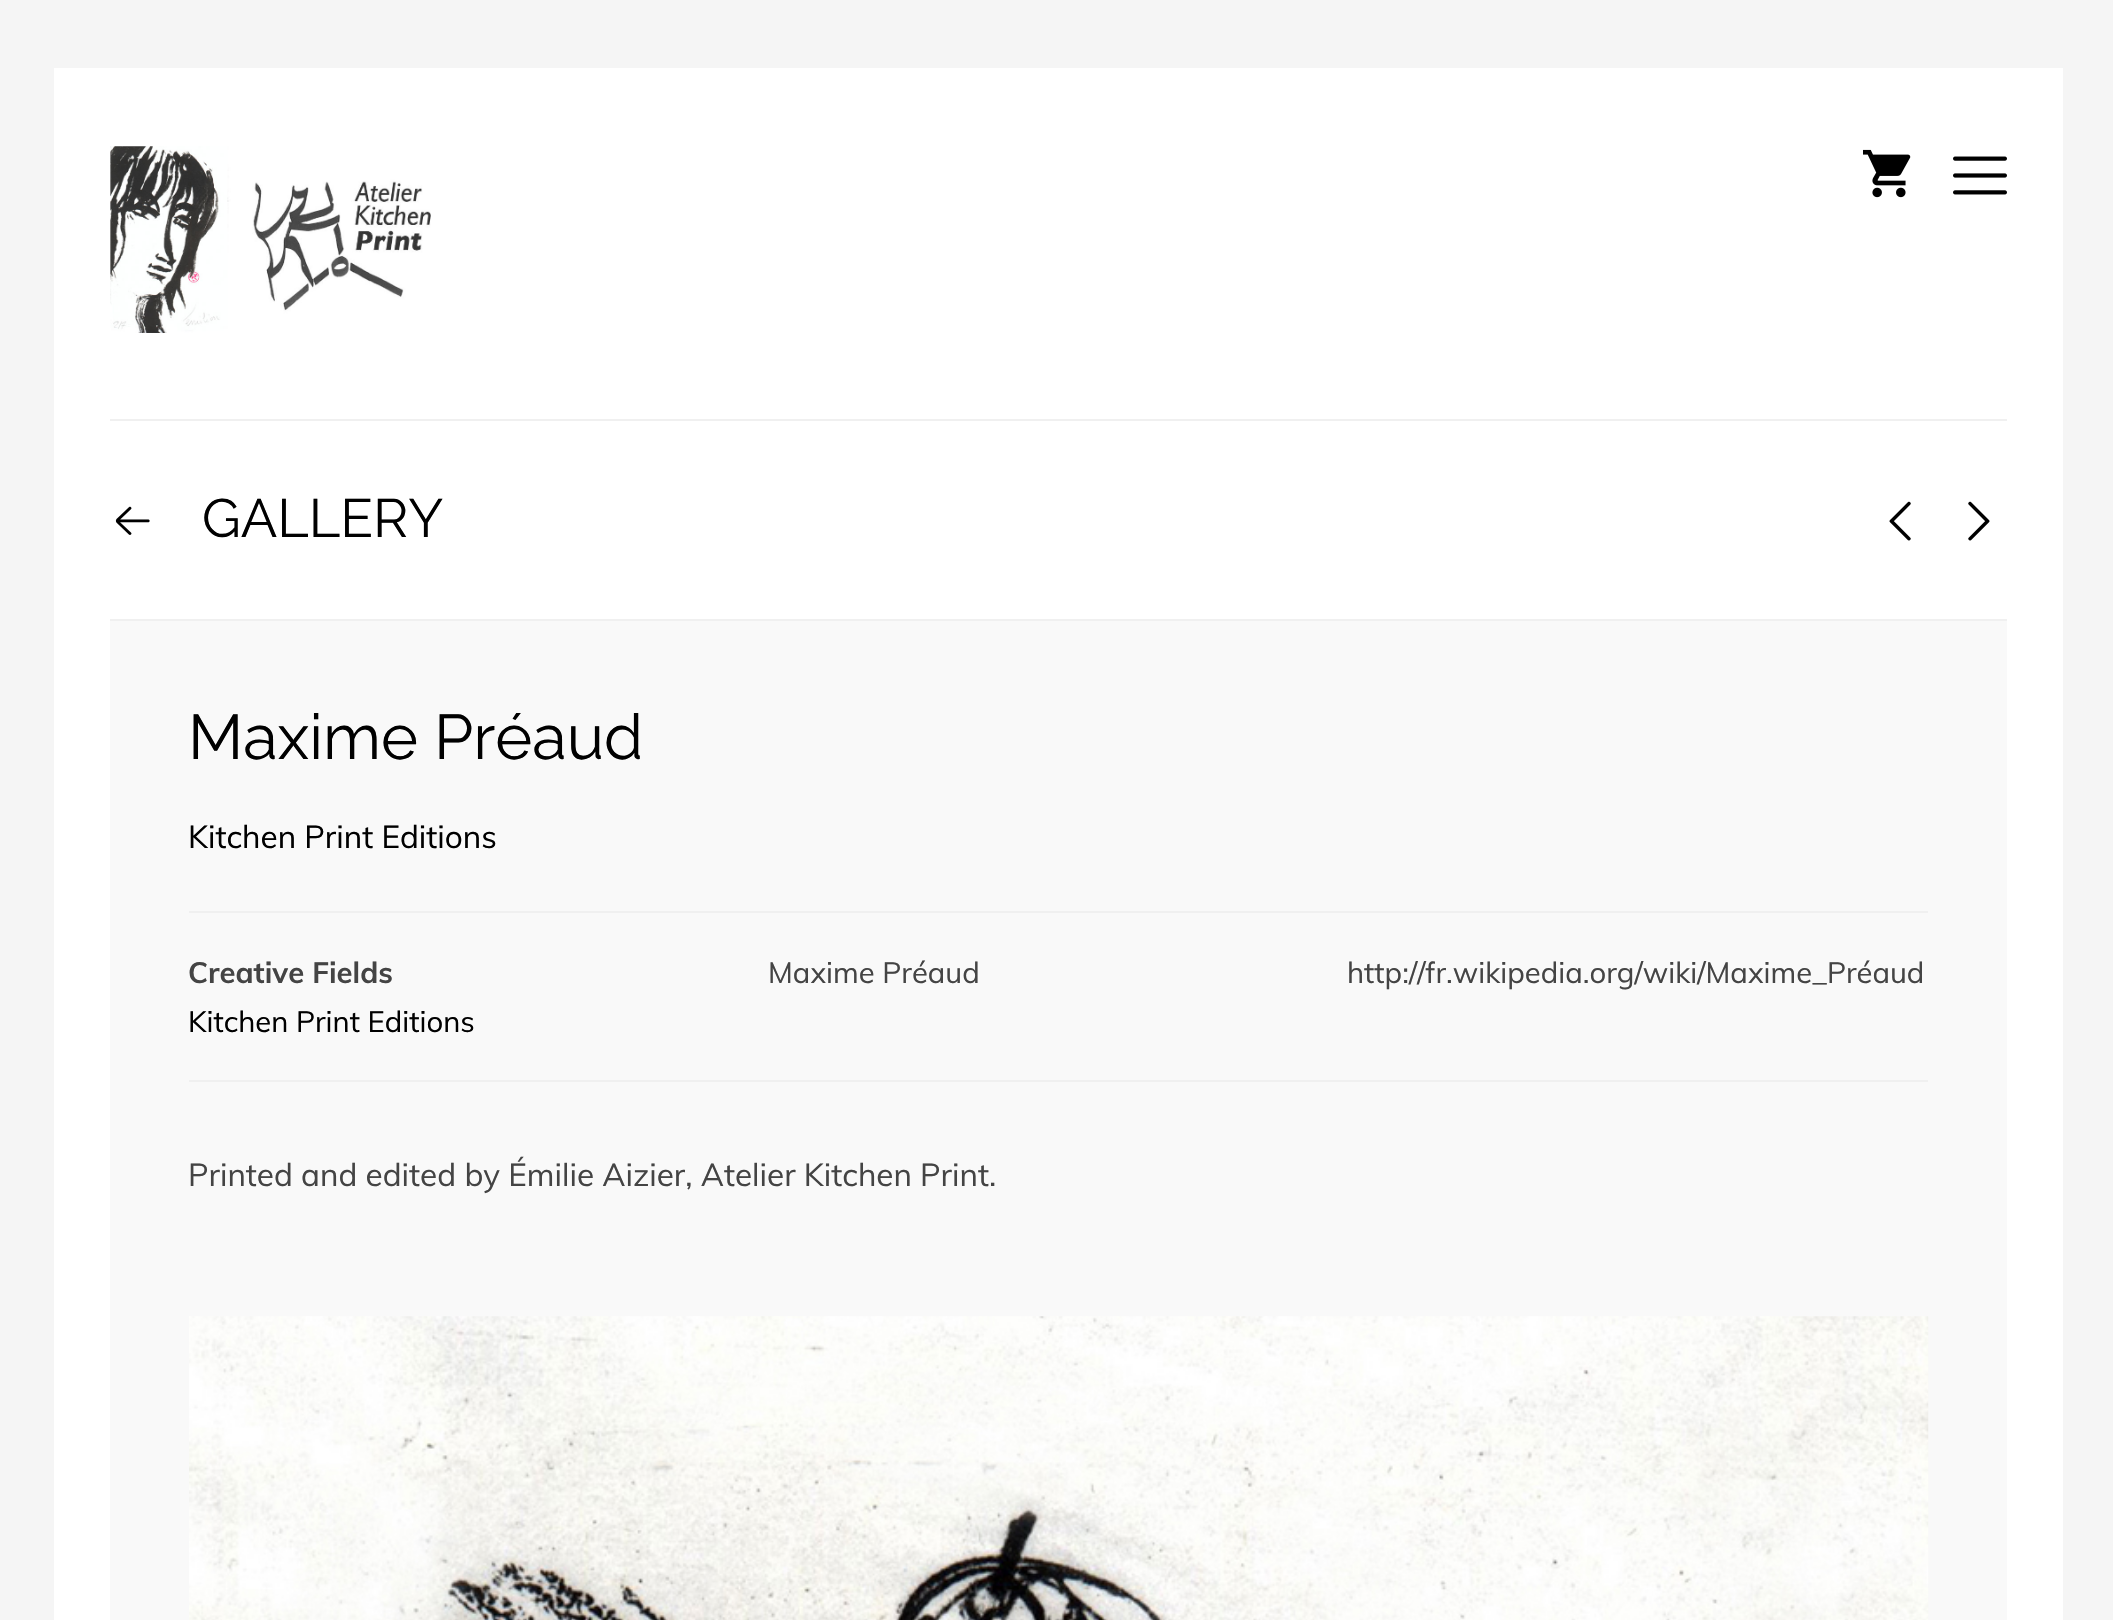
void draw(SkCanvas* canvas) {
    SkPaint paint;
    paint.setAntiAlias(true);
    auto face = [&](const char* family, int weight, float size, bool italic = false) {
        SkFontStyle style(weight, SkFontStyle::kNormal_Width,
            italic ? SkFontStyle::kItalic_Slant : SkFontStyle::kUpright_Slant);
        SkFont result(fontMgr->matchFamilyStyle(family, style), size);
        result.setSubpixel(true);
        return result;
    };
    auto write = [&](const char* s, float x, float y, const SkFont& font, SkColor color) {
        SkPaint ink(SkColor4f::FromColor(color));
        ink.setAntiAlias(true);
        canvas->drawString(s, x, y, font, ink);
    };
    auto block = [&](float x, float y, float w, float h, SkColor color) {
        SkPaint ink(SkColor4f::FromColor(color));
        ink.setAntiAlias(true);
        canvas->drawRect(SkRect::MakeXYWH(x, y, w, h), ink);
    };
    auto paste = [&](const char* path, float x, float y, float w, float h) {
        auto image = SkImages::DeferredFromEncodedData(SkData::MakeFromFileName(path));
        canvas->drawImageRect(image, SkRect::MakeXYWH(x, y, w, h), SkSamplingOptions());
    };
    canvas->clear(SkColorSetRGB(245, 245, 245));
    block(54, 68, 2009, 1552, SK_ColorWHITE);
    block(110, 419, 1897, 2, SkColorSetRGB(240, 240, 240));
    paste("pic1.png", 110, 146, 321, 187);
    paste("pic2.png", 1863, 149, 48, 49);
    paste("pic3.png", 1953, 156, 54, 39);
    block(110, 619, 1897, 2, SkColorSetRGB(240, 240, 240));
    paste("pic4.png", 115, 506, 35, 29);
    auto kFont1 = face("Raleway", 400, 54);
    write("GALLERY", 202, 537, kFont1, SK_ColorBLACK);
    paste("pic5.png", 1889, 501, 22, 40);
    paste("pic6.png", 1968, 501, 22, 40);
    block(110, 621, 1897, 999, SkColorSetRGB(249, 249, 249));
    auto kFont2 = face("Raleway", 400, 63);
    write("Maxime Préaud", 188, 759, kFont2, SK_ColorBLACK);
    auto kFont3 = face("Muli", 400, 31.5f);
    write("Kitchen Print Editions", 188, 848, kFont3, SK_ColorBLACK);
    block(189, 911, 1739, 2, SkColorSetRGB(240, 240, 240));
    block(189, 1080, 1739, 2, SkColorSetRGB(240, 240, 240));
    auto kFont4 = face("Muli", 700, 29.25f);
    write("Creative Fields", 188, 983, kFont4, SkColorSetRGB(68, 68, 68));
    auto kFont5 = face("Muli", 400, 29.25f);
    write("Kitchen Print Editions", 188, 1032, kFont5, SK_ColorBLACK);
    write("Maxime Préaud", 768, 983, kFont5, SkColorSetRGB(68, 68, 68));
    write("http://fr.wikipedia.org/wiki/Maxime_Préaud", 1347, 983, kFont5, SkColorSetRGB(68, 68, 68));
    write("Printed and edited by Émilie Aizier, Atelier Kitchen Print.", 188, 1186, kFont3, SkColorSetRGB(68, 68, 68));
    paste("pic7.png", 189, 1316, 1740, 304);
}
